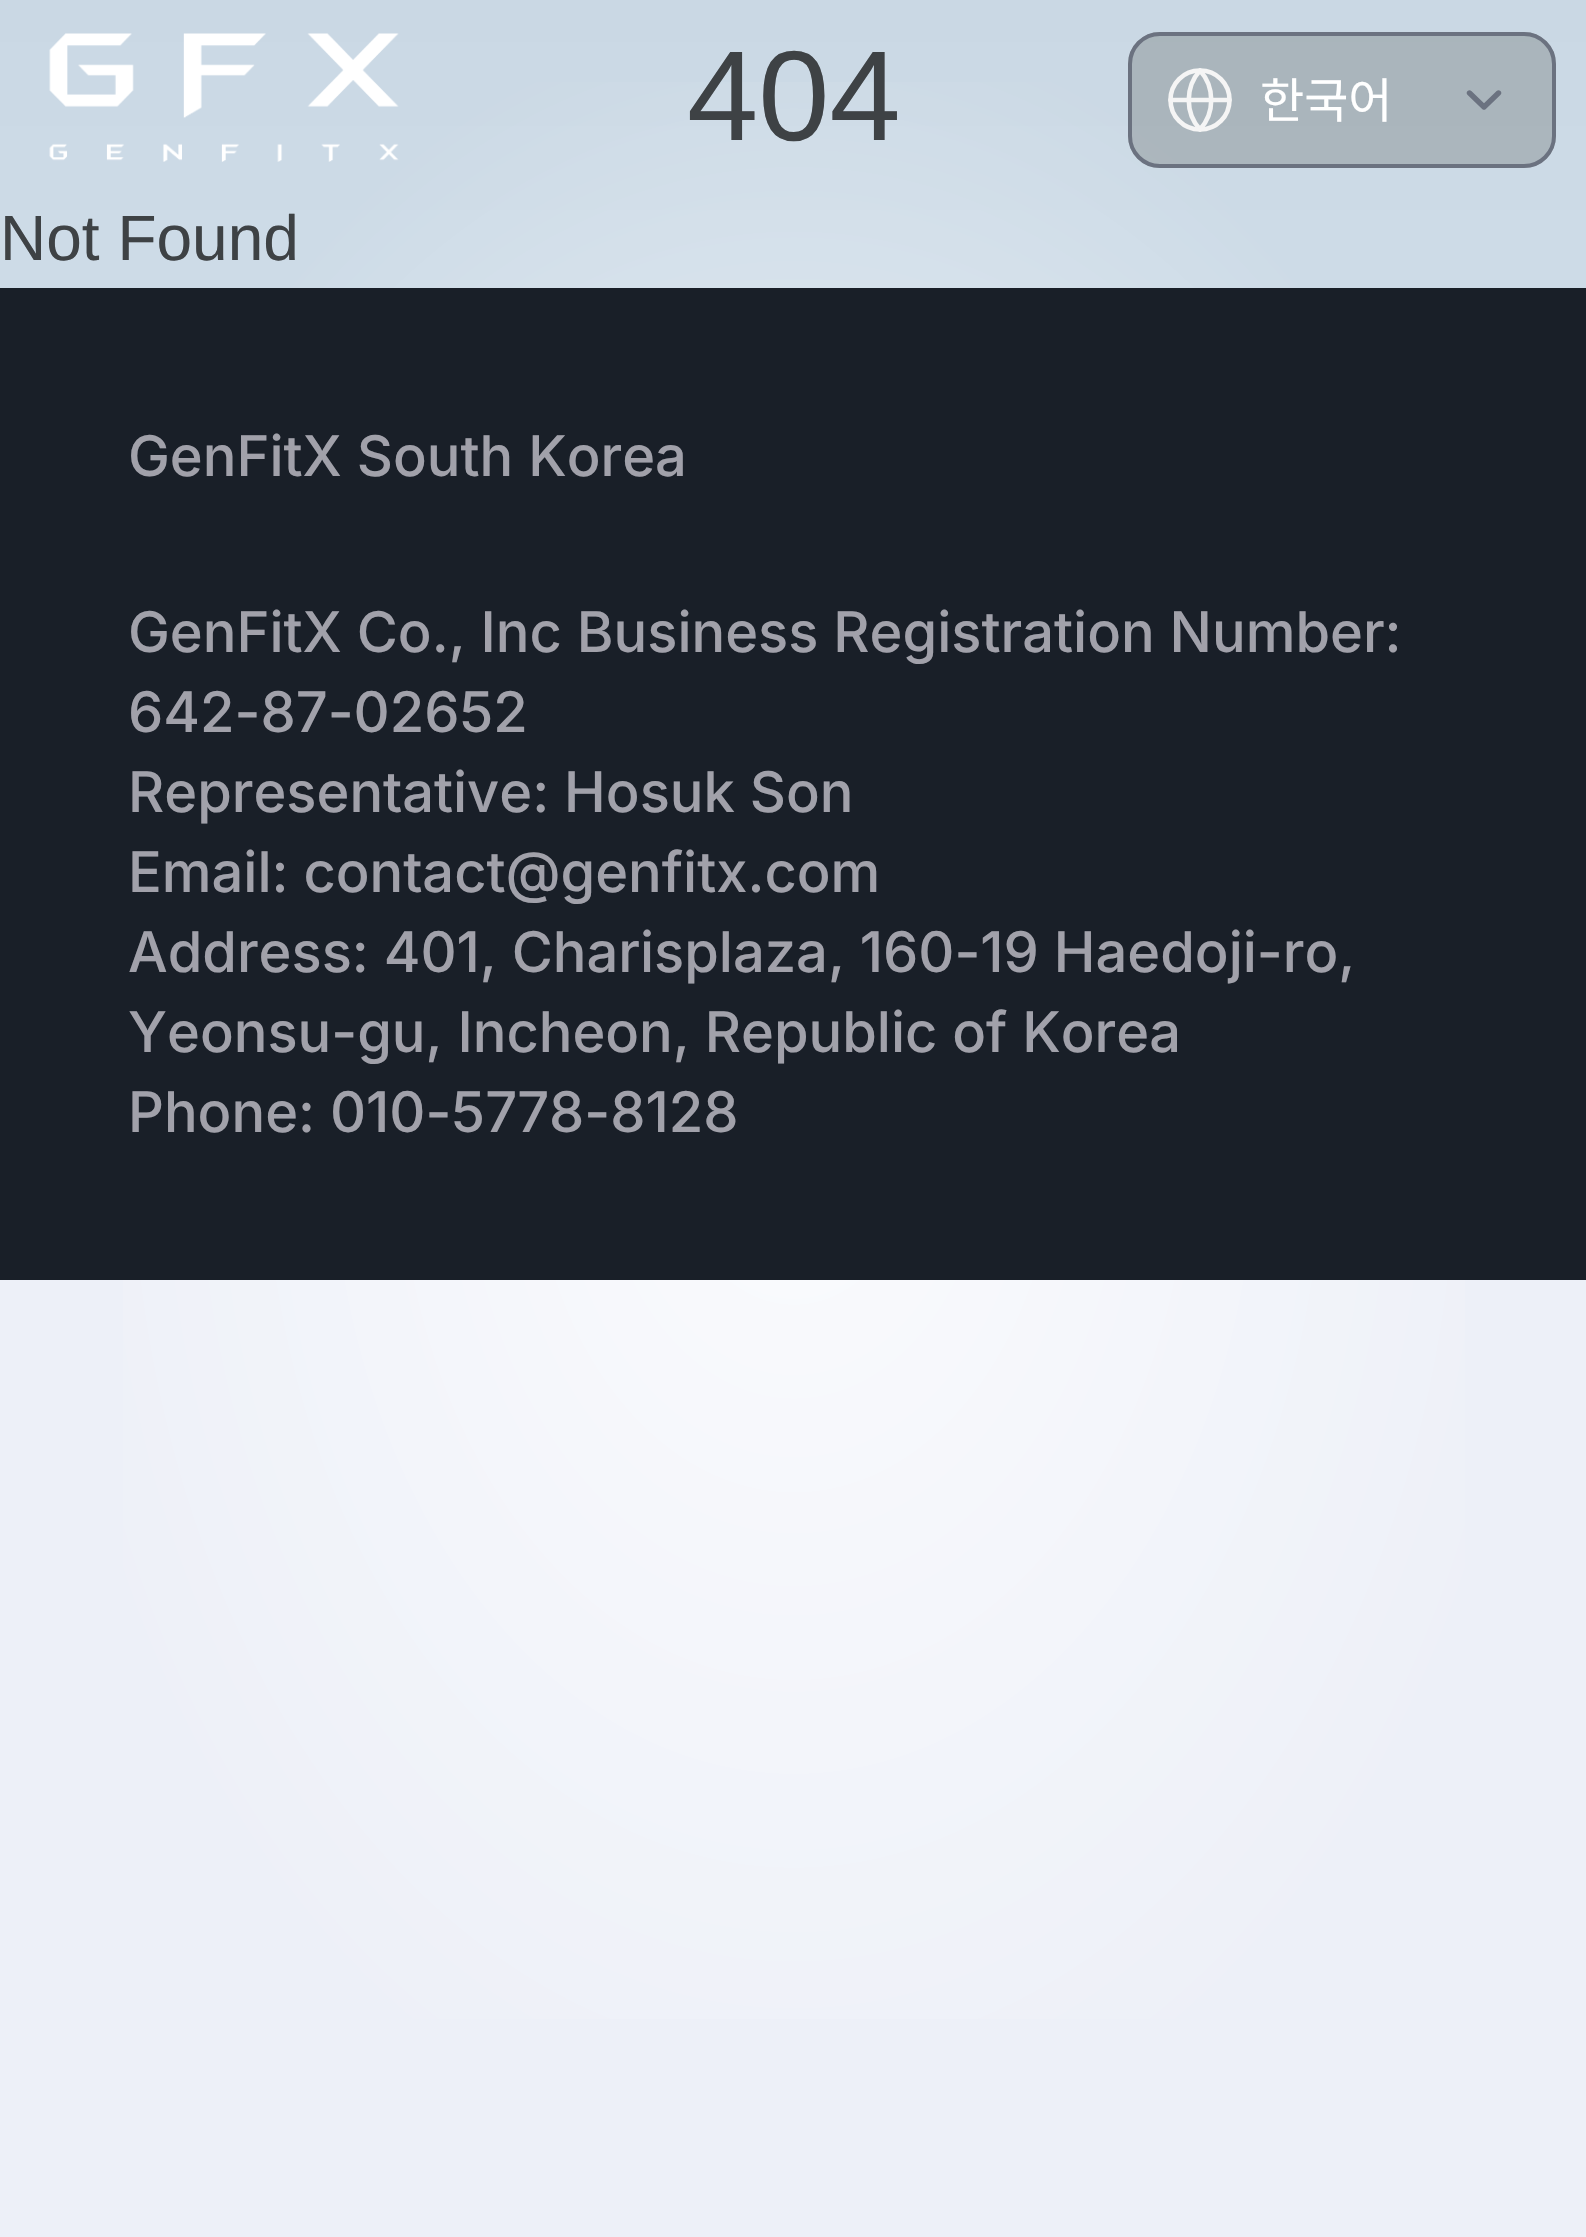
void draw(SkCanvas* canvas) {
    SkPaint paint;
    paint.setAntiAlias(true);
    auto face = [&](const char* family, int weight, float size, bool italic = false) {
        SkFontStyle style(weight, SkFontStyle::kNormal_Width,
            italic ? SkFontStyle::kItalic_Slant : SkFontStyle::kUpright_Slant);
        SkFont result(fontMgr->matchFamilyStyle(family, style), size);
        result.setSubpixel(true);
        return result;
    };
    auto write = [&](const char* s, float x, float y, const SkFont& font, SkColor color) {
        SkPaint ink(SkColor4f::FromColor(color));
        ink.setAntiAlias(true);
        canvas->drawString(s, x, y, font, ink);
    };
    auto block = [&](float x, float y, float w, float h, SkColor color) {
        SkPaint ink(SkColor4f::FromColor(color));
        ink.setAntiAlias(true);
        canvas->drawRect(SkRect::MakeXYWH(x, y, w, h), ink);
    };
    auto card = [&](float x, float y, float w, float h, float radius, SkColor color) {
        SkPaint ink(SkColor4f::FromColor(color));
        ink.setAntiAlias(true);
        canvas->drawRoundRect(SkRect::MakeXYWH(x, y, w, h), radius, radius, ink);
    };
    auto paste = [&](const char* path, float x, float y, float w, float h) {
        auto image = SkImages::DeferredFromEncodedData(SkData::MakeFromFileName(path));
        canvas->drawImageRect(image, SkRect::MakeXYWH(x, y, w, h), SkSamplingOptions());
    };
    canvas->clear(SK_ColorWHITE);
    {
        const SkColor colors[] = {SkColorSetRGB(202, 216, 228), SkColorSetRGB(206, 220, 232), SkColorSetRGB(237, 240, 248)};
        const float stops[] = {0, 0.15f, 0.5f};
        const SkPoint ends[] = {{794, 0}, {794, 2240}};
        paint.setShader(SkGradientShader::MakeLinear(ends, colors, stops, 3, SkTileMode::kClamp));
        paint.setAlpha(255);
    }
    canvas->drawRect(SkRect::MakeXYWH(0, 0, 1586, 2237), paint);
    {
        const SkColor colors[] = {SkColorSetARGB(191, 255, 255, 255), SkColorSetARGB(0, 255, 255, 255)};
        const float stops[] = {0, 1};
        SkMatrix m = SkMatrix::Translate(794, 1120).preScale(794, 1120);
        paint.setShader(SkGradientShader::MakeRadial({0, 0}, 1, colors, stops, 2, SkTileMode::kClamp, 0, &m));
        paint.setAlpha(255);
    }
    canvas->drawRect(SkRect::MakeXYWH(123, 82, 1342, 1937), paint);
    auto kFont1 = face("Liberation Sans", 400, 128);
    write("404", 687, 140, kFont1, SkColorSetRGB(62, 66, 69));
    auto kFont2 = face("Liberation Sans", 400, 64);
    write("Not Found", 0, 260, kFont2, SkColorSetRGB(62, 66, 69));
    paste("pic1.png", 49, 33, 350, 129);
    card(1128, 32, 428, 136, 32, SkColorSetARGB(51, 41, 41, 23));
    paint.setStyle(SkPaint::kStroke_Style);
    paint.setStrokeWidth(5.4f);
    paint.setStrokeCap(SkPaint::kRound_Cap);
    paint.setStrokeJoin(SkPaint::kRound_Join);
    paint.setShader(nullptr);
    paint.setColor(SkColorSetRGB(107, 114, 128));
    canvas->drawPath(SkPathBuilder().moveTo(1469.5f, 93).lineTo(1484, 107).lineTo(1498.5f, 93).detach(), paint);
    paint.setStrokeWidth(4);
    paint.setStrokeCap(SkPaint::kButt_Cap);
    paint.setStrokeJoin(SkPaint::kMiter_Join);
    canvas->drawRoundRect(SkRect::MakeXYWH(1130, 34, 424, 132), 30, 30, paint);
    paint.setStrokeWidth(4.6f);
    paint.setStrokeCap(SkPaint::kRound_Cap);
    paint.setStrokeJoin(SkPaint::kRound_Join);
    paint.setColor(SkColorSetRGB(245, 245, 245));
    canvas->drawPath(SkPathBuilder().moveTo(1200, 129.5f).cubicTo(1216.5f, 129.5f, 1229.5f, 116.5f, 1229.5f, 100).cubicTo(1229.5f, 83.5f, 1216.5f, 70.5f, 1200, 70.5f).cubicTo(1183.5f, 70.5f, 1170.5f, 83.5f, 1170.5f, 100).cubicTo(1170.5f, 116.5f, 1183.5f, 129.5f, 1200, 129.5f).close().detach(), paint);
    canvas->drawPath(SkPathBuilder().moveTo(1170.5f, 100).lineTo(1229.5f, 100).detach(), paint);
    canvas->drawPath(SkPathBuilder().moveTo(1200, 70.5f).cubicTo(1215, 87, 1215, 113, 1200, 129.5f).cubicTo(1185, 113, 1185, 87, 1200, 70.5f).close().detach(), paint);
    auto kFont3 = face("Noto Sans KR", 400, 48);
    write("한국어", 1260, 118, kFont3, SK_ColorWHITE);
    block(0, 288, 1586, 992, SkColorSetRGB(25, 31, 40));
    auto kFont4 = face("Inter", 500, 56);
    write("GenFitX South Korea", 128, 476, kFont4, SkColorSetRGB(161, 161, 170));
    write("GenFitX Co., Inc Business Registration Number:", 128, 652, kFont4, SkColorSetRGB(161, 161, 170));
    write("642-87-02652", 128, 732, kFont4, SkColorSetRGB(161, 161, 170));
    write("Representative: Hosuk Son", 128, 812, kFont4, SkColorSetRGB(161, 161, 170));
    write("Email: contact@genfitx.com", 128, 892, kFont4, SkColorSetRGB(161, 161, 170));
    write("Address: 401, Charisplaza, 160-19 Haedoji-ro,", 128, 972, kFont4, SkColorSetRGB(161, 161, 170));
    write("Yeonsu-gu, Incheon, Republic of Korea", 128, 1052, kFont4, SkColorSetRGB(161, 161, 170));
    write("Phone: 010-5778-8128", 128, 1132, kFont4, SkColorSetRGB(161, 161, 170));
}
